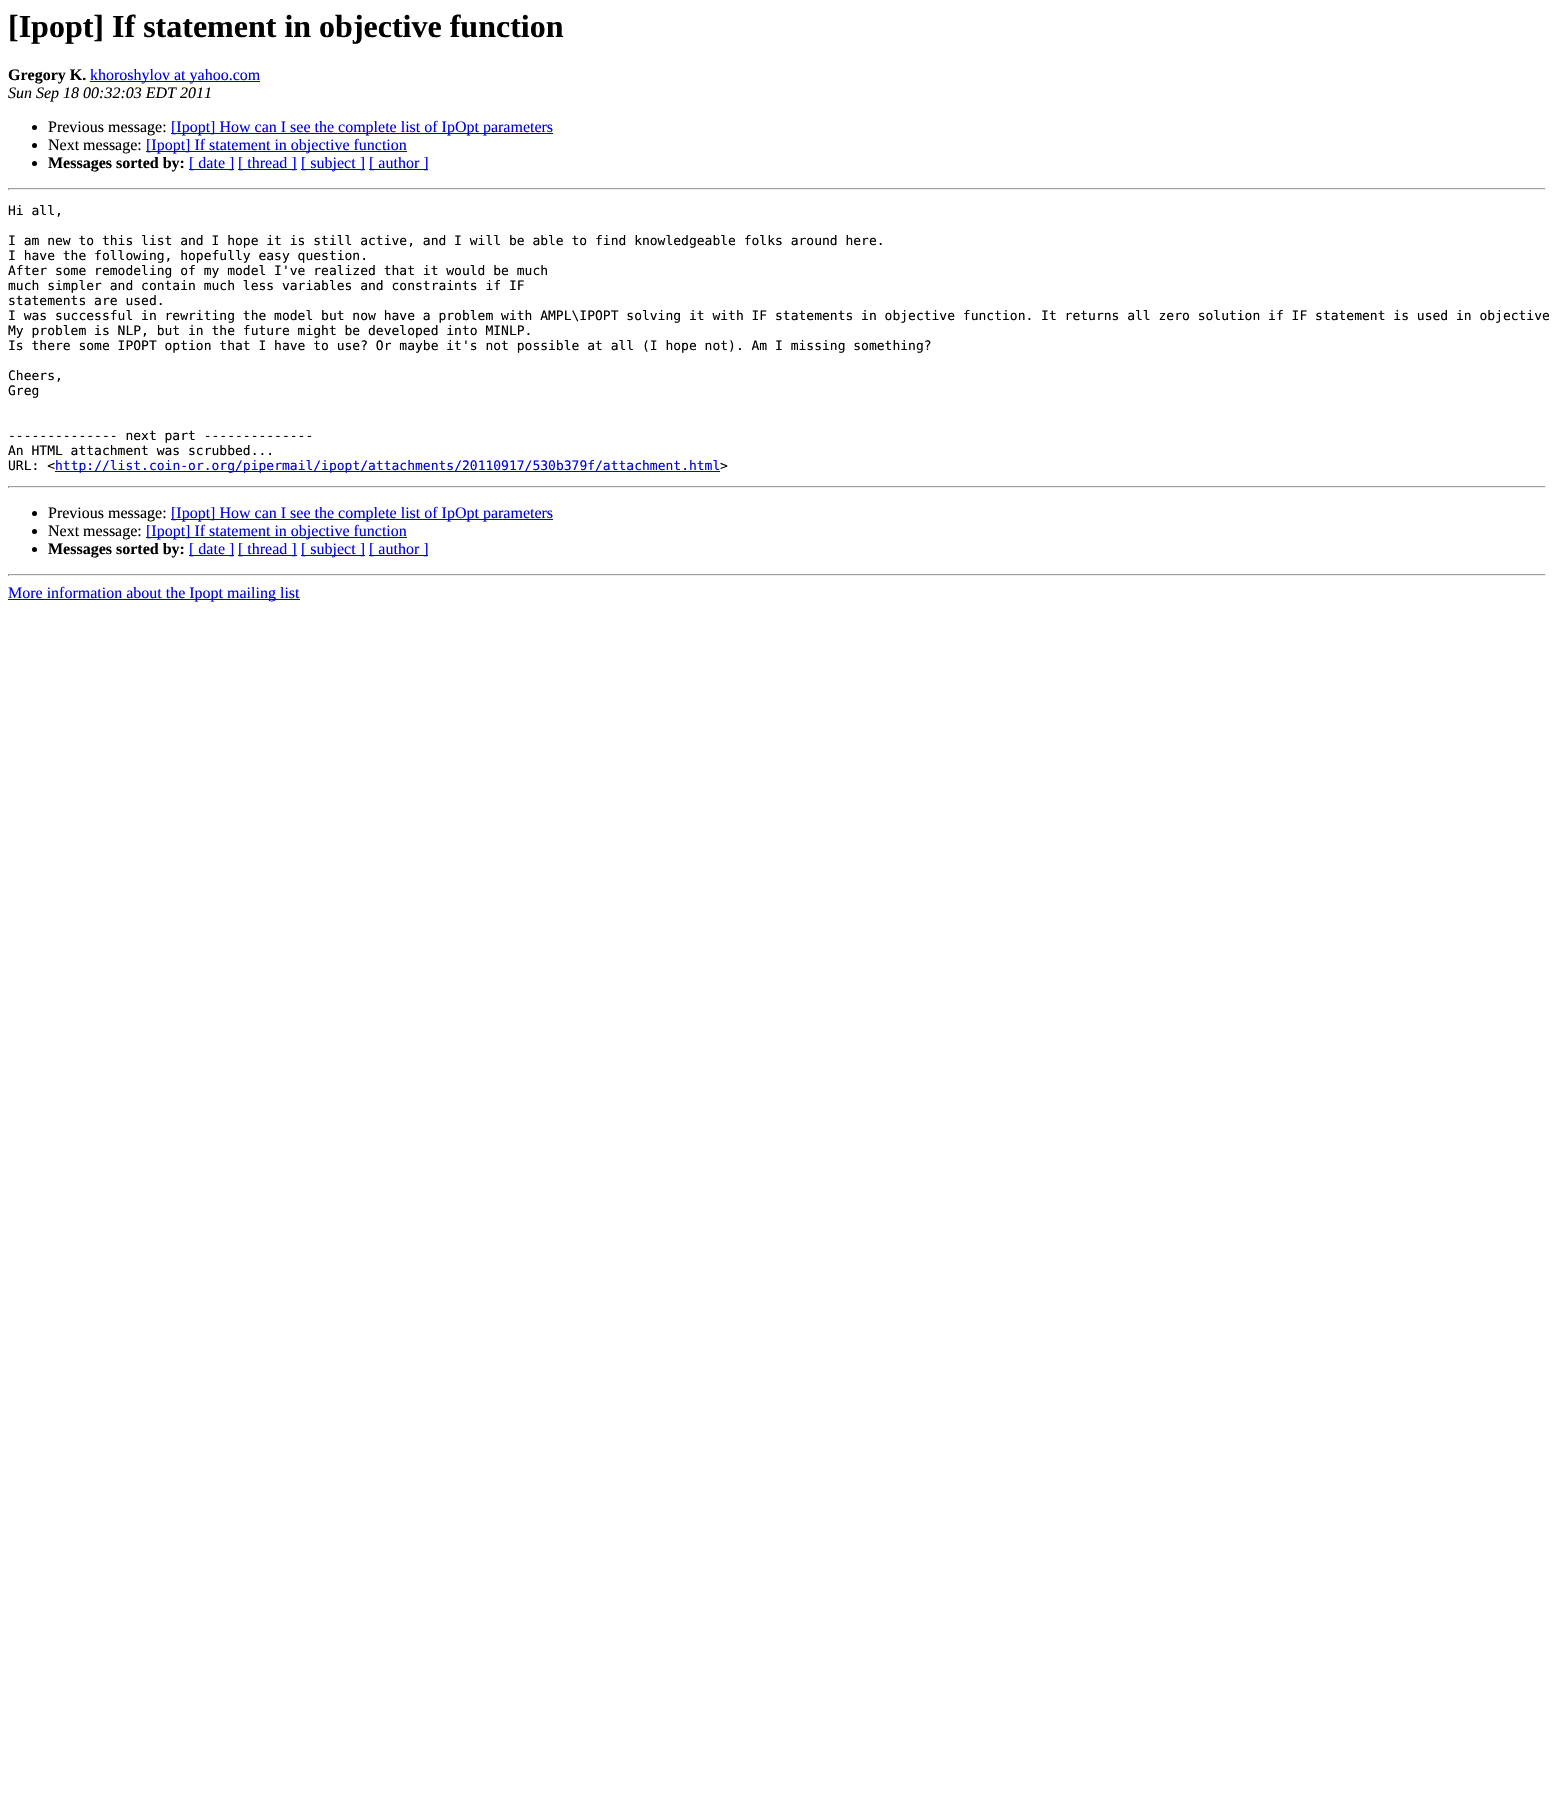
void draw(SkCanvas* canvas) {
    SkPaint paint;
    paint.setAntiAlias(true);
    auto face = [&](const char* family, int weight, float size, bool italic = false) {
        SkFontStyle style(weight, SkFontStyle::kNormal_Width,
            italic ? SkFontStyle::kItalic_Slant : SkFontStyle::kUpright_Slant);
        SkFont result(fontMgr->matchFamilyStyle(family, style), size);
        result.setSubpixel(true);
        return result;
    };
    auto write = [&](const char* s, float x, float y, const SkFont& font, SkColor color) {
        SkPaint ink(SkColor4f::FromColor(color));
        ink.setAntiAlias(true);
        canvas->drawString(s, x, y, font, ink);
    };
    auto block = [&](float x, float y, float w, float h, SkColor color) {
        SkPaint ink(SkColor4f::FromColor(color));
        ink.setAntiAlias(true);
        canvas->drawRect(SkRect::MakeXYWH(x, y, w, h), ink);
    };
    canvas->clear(SK_ColorWHITE);
    auto kFont1 = face("Liberation Serif", 700, 32);
    write("[Ipopt] If statement in objective function", 8, 37, kFont1, SK_ColorBLACK);
    auto kFont2 = face("Liberation Serif", 700, 16);
    write("Gregory K.", 8, 80, kFont2, SK_ColorBLACK);
    block(90, 81, 170, 1, SkColorSetRGB(0, 0, 238));
    auto kFont3 = face("Liberation Serif", 400, 16);
    write("khoroshylov at yahoo.com", 90, 80, kFont3, SkColorSetRGB(0, 0, 238));
    auto kFont4 = face("Liberation Serif", 400, 16, true);
    write("Sun Sep 18 00:32:03 EDT 2011", 8, 98, kFont4, SK_ColorBLACK);
    paint.setColor(SK_ColorBLACK);
    canvas->drawCircle(34.5f, 127.5f, 2.5f, paint);
    write("Previous message:", 48, 132, kFont3, SK_ColorBLACK);
    block(171, 133, 382, 1, SkColorSetRGB(0, 0, 238));
    write("[Ipopt] How can I see the complete list of IpOpt parameters", 171, 132, kFont3, SkColorSetRGB(0, 0, 238));
    canvas->drawCircle(34.5f, 145.5f, 2.5f, paint);
    write("Next message:", 48, 150, kFont3, SK_ColorBLACK);
    block(146, 151, 261, 1, SkColorSetRGB(0, 0, 238));
    write("[Ipopt] If statement in objective function", 146, 150, kFont3, SkColorSetRGB(0, 0, 238));
    canvas->drawCircle(34.5f, 163.5f, 2.5f, paint);
    write("Messages sorted by:", 48, 168, kFont2, SK_ColorBLACK);
    block(189, 169, 45, 1, SkColorSetRGB(0, 0, 238));
    write("[ date ]", 189, 168, kFont3, SkColorSetRGB(0, 0, 238));
    block(238, 169, 59, 1, SkColorSetRGB(0, 0, 238));
    write("[ thread ]", 238, 168, kFont3, SkColorSetRGB(0, 0, 238));
    block(301, 169, 64, 1, SkColorSetRGB(0, 0, 238));
    write("[ subject ]", 301, 168, kFont3, SkColorSetRGB(0, 0, 238));
    block(369, 169, 59, 1, SkColorSetRGB(0, 0, 238));
    write("[ author ]", 369, 168, kFont3, SkColorSetRGB(0, 0, 238));
    block(8, 188, 1538, 1, SkColorSetRGB(159, 159, 159));
    block(1545, 188, 1, 2, SkColorSetRGB(238, 238, 238));
    block(8, 189, 1538, 1, SkColorSetRGB(238, 238, 238));
    block(8, 188, 1, 2, SkColorSetRGB(159, 159, 159));
    auto kFont5 = face("DejaVu Sans Mono", 400, 13);
    write("Hi all,", 8, 215, kFont5, SK_ColorBLACK);
    write("I am new to this list and I hope it is still active, and I will be able to find knowledgeable folks around here.", 8, 245, kFont5, SK_ColorBLACK);
    write("I have the following, hopefully easy question.", 8, 260, kFont5, SK_ColorBLACK);
    write("After some remodeling of my model I've realized that it would be much", 8, 275, kFont5, SK_ColorBLACK);
    write("much simpler and contain much less variables and constraints if IF", 8, 290, kFont5, SK_ColorBLACK);
    write("statements are used.", 8, 305, kFont5, SK_ColorBLACK);
    write("I was successful in rewriting the model but now have a problem with AMPL\\IPOPT solving it with IF statements in objective function. It returns all zero solution if IF statement is used in objective", 8, 320, kFont5, SK_ColorBLACK);
    write("My problem is NLP, but in the future might be developed into MINLP.", 8, 335, kFont5, SK_ColorBLACK);
    write("Is there some IPOPT option that I have to use? Or maybe it's not possible at all (I hope not). Am I missing something?", 8, 350, kFont5, SK_ColorBLACK);
    write("Cheers,", 8, 380, kFont5, SK_ColorBLACK);
    write("Greg", 8, 395, kFont5, SK_ColorBLACK);
    write("-------------- next part --------------", 8, 440, kFont5, SK_ColorBLACK);
    write("An HTML attachment was scrubbed...", 8, 455, kFont5, SK_ColorBLACK);
    write("URL: <", 8, 470, kFont5, SK_ColorBLACK);
    block(55, 471, 665, 1, SkColorSetRGB(0, 0, 238));
    write("http://list.coin-or.org/pipermail/ipopt/attachments/20110917/530b379f/attachment.html", 55, 470, kFont5, SkColorSetRGB(0, 0, 238));
    write(">", 720, 470, kFont5, SK_ColorBLACK);
    block(8, 486, 1538, 1, SkColorSetRGB(159, 159, 159));
    block(1545, 486, 1, 2, SkColorSetRGB(238, 238, 238));
    block(8, 487, 1538, 1, SkColorSetRGB(238, 238, 238));
    block(8, 486, 1, 2, SkColorSetRGB(159, 159, 159));
    canvas->drawCircle(34.5f, 513.5f, 2.5f, paint);
    write("Previous message:", 48, 518, kFont3, SK_ColorBLACK);
    block(171, 519, 382, 1, SkColorSetRGB(0, 0, 238));
    write("[Ipopt] How can I see the complete list of IpOpt parameters", 171, 518, kFont3, SkColorSetRGB(0, 0, 238));
    canvas->drawCircle(34.5f, 531.5f, 2.5f, paint);
    write("Next message:", 48, 536, kFont3, SK_ColorBLACK);
    block(146, 537, 261, 1, SkColorSetRGB(0, 0, 238));
    write("[Ipopt] If statement in objective function", 146, 536, kFont3, SkColorSetRGB(0, 0, 238));
    canvas->drawCircle(34.5f, 549.5f, 2.5f, paint);
    write("Messages sorted by:", 48, 554, kFont2, SK_ColorBLACK);
    block(189, 555, 45, 1, SkColorSetRGB(0, 0, 238));
    write("[ date ]", 189, 554, kFont3, SkColorSetRGB(0, 0, 238));
    block(238, 555, 59, 1, SkColorSetRGB(0, 0, 238));
    write("[ thread ]", 238, 554, kFont3, SkColorSetRGB(0, 0, 238));
    block(301, 555, 64, 1, SkColorSetRGB(0, 0, 238));
    write("[ subject ]", 301, 554, kFont3, SkColorSetRGB(0, 0, 238));
    block(369, 555, 59, 1, SkColorSetRGB(0, 0, 238));
    write("[ author ]", 369, 554, kFont3, SkColorSetRGB(0, 0, 238));
    block(8, 574, 1538, 1, SkColorSetRGB(159, 159, 159));
    block(1545, 574, 1, 2, SkColorSetRGB(238, 238, 238));
    block(8, 575, 1538, 1, SkColorSetRGB(238, 238, 238));
    block(8, 574, 1, 2, SkColorSetRGB(159, 159, 159));
    block(8, 599, 292, 1, SkColorSetRGB(0, 0, 238));
    write("More information about the Ipopt mailing list", 8, 598, kFont3, SkColorSetRGB(0, 0, 238));
}
